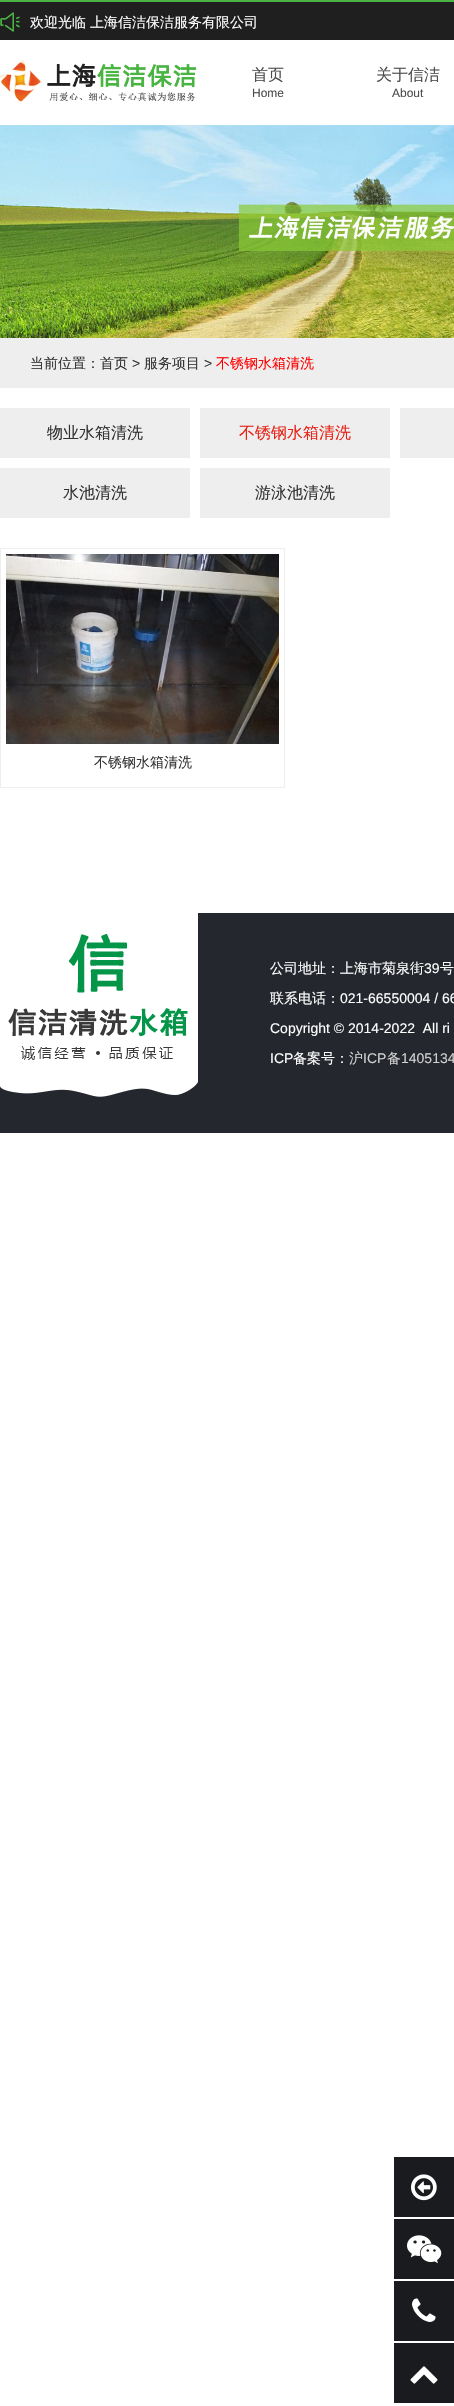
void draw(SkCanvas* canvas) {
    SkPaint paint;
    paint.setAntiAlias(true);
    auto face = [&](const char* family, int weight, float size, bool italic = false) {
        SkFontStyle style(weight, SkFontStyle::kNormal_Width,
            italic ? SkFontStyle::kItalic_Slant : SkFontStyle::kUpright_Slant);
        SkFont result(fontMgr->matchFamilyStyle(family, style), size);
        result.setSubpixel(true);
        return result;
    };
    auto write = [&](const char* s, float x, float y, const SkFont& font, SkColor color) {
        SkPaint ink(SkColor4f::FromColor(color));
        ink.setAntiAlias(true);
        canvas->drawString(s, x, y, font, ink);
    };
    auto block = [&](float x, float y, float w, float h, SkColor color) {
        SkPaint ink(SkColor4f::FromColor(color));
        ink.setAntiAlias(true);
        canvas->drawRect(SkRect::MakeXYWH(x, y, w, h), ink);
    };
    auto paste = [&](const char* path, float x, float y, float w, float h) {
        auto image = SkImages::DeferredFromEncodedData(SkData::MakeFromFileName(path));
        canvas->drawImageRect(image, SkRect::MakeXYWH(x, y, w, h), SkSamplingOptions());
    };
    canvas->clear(SK_ColorWHITE);
    block(0, 2, 454, 38, SkColorSetRGB(31, 31, 31));
    block(0, 0, 454, 2, SkColorSetRGB(75, 179, 68));
    paste("pic1.png", 0, 10, 21, 23);
    auto kFont1 = face("WenQuanYi Zen Hei", 500, 14);
    write("欢迎光临", 30, 27, kFont1, SK_ColorWHITE);
    write("上海信洁保洁服务有限公司", 90, 27, kFont1, SK_ColorWHITE);
    paste("pic2.png", 0, 60, 197, 42);
    auto kFont2 = face("WenQuanYi Zen Hei", 500, 16);
    write("首页", 252, 80, kFont2, SkColorSetRGB(76, 76, 76));
    auto kFont3 = face("Liberation Sans", 400, 12);
    write("Home", 252, 97, kFont3, SkColorSetRGB(76, 76, 76));
    write("关于信洁", 376, 80, kFont2, SkColorSetRGB(76, 76, 76));
    write("About", 392, 97, kFont3, SkColorSetRGB(76, 76, 76));
    paste("pic3.png", 0, 125, 454, 213);
    block(0, 338, 454, 50, SkColorSetRGB(238, 238, 238));
    write("当前位置：首页", 30, 368, kFont1, SkColorSetRGB(51, 51, 51));
    auto kFont4 = face("Liberation Sans", 400, 14);
    write(">", 132, 368, kFont4, SkColorSetRGB(51, 51, 51));
    write("服务项目", 144, 368, kFont1, SkColorSetRGB(51, 51, 51));
    write(">", 204, 368, kFont4, SkColorSetRGB(51, 51, 51));
    write("不锈钢水箱清洗", 216, 368, kFont1, SkColorSetRGB(255, 0, 0));
    block(0, 408, 190, 50, SkColorSetRGB(238, 238, 238));
    write("物业水箱清洗", 47, 438, kFont2, SkColorSetRGB(51, 51, 51));
    block(200, 408, 190, 50, SkColorSetRGB(238, 238, 238));
    write("不锈钢水箱清洗", 239, 438, kFont2, SkColorSetRGB(230, 34, 21));
    block(400, 408, 54, 50, SkColorSetRGB(238, 238, 238));
    block(0, 468, 190, 50, SkColorSetRGB(238, 238, 238));
    write("水池清洗", 63, 498, kFont2, SkColorSetRGB(51, 51, 51));
    block(200, 468, 190, 50, SkColorSetRGB(238, 238, 238));
    write("游泳池清洗", 255, 498, kFont2, SkColorSetRGB(51, 51, 51));
    paint.setStyle(SkPaint::kStroke_Style);
    paint.setStrokeWidth(1);
    paint.setColor(SkColorSetRGB(238, 238, 238));
    canvas->drawRect(SkRect::MakeXYWH(0.5f, 548.5f, 284, 239), paint);
    paste("pic4.png", 6, 554, 273, 190);
    write("不锈钢水箱清洗", 94, 767, kFont1, SkColorSetRGB(51, 51, 51));
    block(0, 913, 454, 220, SkColorSetRGB(37, 39, 46));
    paste("pic5.png", 0, 913, 198, 184);
    write("公司地址：上海市菊泉街", 270, 973, kFont1, SK_ColorWHITE);
    write("39", 424, 973, kFont4, SK_ColorWHITE);
    write("号", 440, 973, kFont1, SK_ColorWHITE);
    write("联系电话：", 270, 1003, kFont1, SK_ColorWHITE);
    write("021-66550004 / 66", 340, 1003, kFont4, SK_ColorWHITE);
    write("Copyright © 2014-2022  All ri", 270, 1033, kFont4, SK_ColorWHITE);
    write("ICP", 270, 1063, kFont4, SK_ColorWHITE);
    write("备案号：", 293, 1063, kFont1, SK_ColorWHITE);
    write("沪", 349, 1063, kFont1, SkColorSetRGB(208, 208, 208));
    write("ICP", 363, 1063, kFont4, SkColorSetRGB(208, 208, 208));
    write("备", 387, 1063, kFont1, SkColorSetRGB(208, 208, 208));
    write("1405134", 401, 1063, kFont4, SkColorSetRGB(208, 208, 208));
    block(394, 2157, 60, 60, SkColorSetRGB(26, 27, 31));
    paste("pic6.png", 411, 2174, 26, 27);
    block(394, 2219, 60, 60, SkColorSetRGB(26, 27, 31));
    paste("pic7.png", 407, 2235, 35, 29);
    block(394, 2281, 60, 60, SkColorSetRGB(26, 27, 31));
    paste("pic8.png", 412, 2298, 24, 24);
    block(394, 2343, 60, 60, SkColorSetRGB(26, 27, 31));
    paste("pic9.png", 410, 2366, 28, 18);
}
